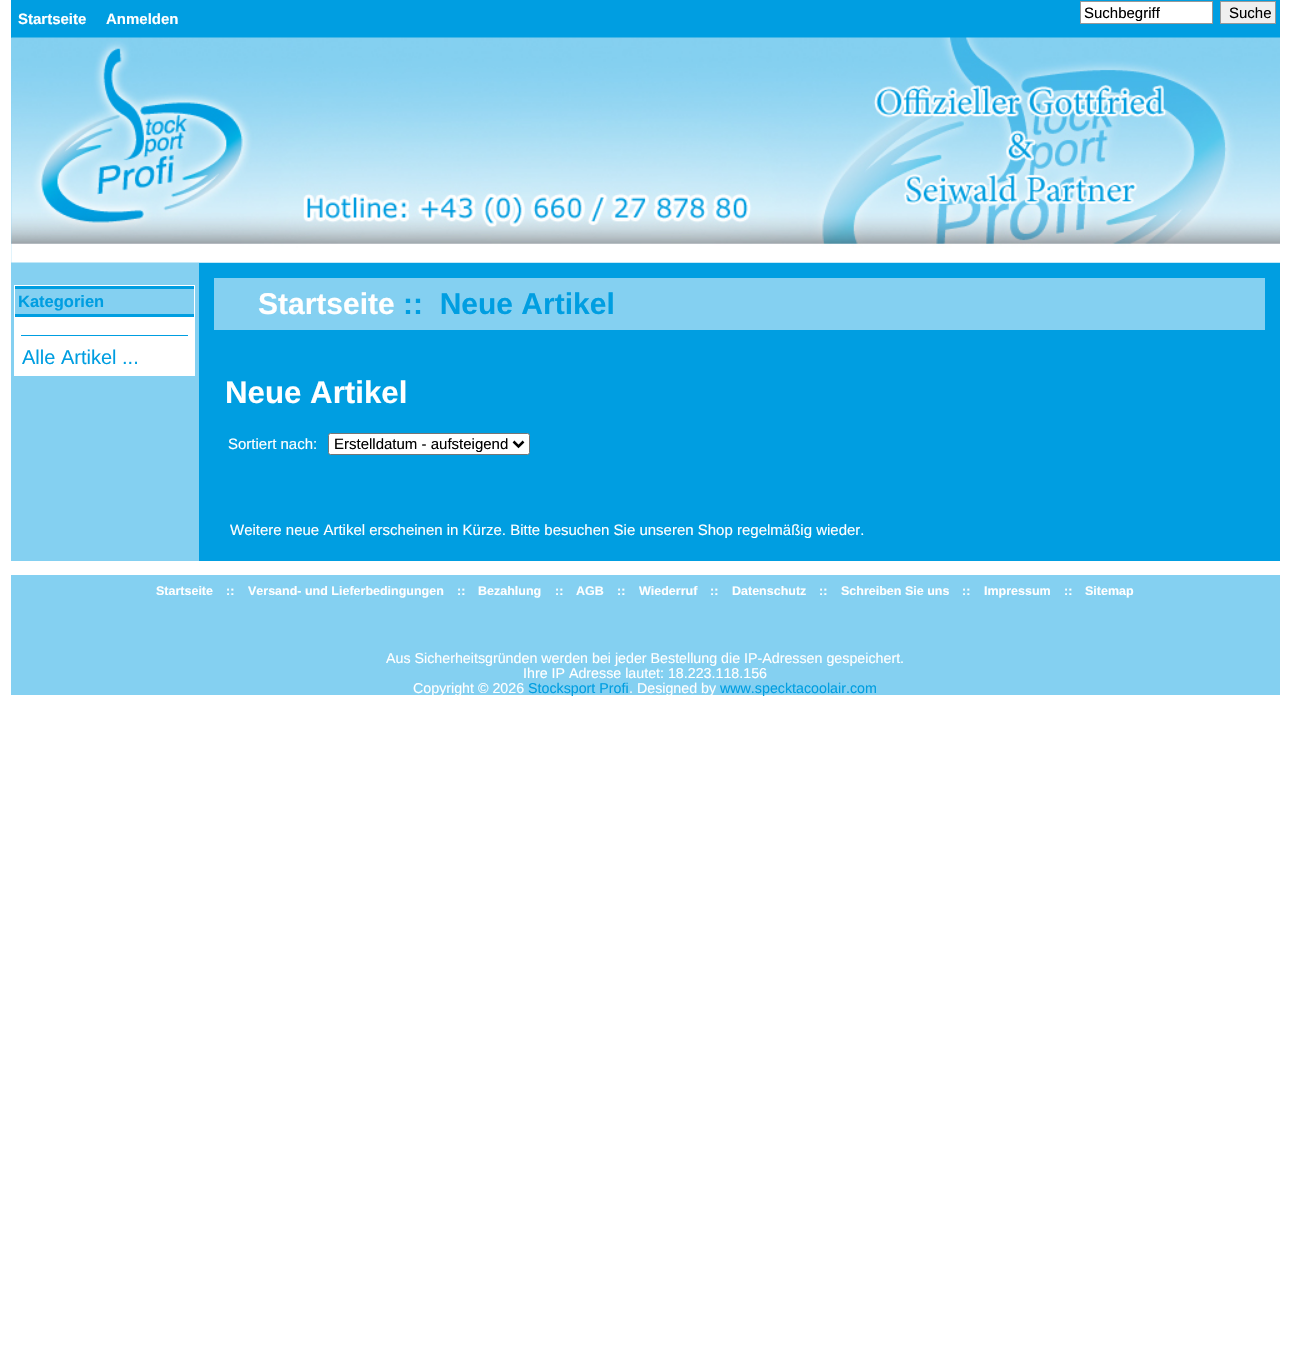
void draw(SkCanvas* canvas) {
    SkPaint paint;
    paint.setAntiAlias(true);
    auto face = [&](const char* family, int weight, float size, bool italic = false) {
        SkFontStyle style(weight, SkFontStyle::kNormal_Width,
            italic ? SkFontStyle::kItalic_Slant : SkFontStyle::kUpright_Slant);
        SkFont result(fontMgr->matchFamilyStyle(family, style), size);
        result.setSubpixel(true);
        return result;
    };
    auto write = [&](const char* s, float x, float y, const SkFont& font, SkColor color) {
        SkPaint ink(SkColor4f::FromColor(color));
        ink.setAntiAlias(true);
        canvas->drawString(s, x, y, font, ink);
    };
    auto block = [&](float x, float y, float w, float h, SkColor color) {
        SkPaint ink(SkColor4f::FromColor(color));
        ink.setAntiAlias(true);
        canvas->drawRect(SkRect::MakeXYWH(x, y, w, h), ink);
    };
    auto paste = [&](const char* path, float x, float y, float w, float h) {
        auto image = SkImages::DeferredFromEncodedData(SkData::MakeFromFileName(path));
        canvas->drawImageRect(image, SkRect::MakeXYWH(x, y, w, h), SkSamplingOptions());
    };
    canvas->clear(SK_ColorWHITE);
    block(11, 38, 1269, 657, SkColorSetRGB(132, 208, 241));
    block(11, 0, 1269, 38, SkColorSetRGB(0, 158, 225));
    auto kFont1 = face("Liberation Sans", 700, 15);
    write("Startseite", 18, 24, kFont1, SK_ColorWHITE);
    write("Anmelden", 106, 24, kFont1, SK_ColorWHITE);
    paint.setColor(SK_ColorWHITE);
    canvas->drawRect(SkRect::MakeXYWH(1080.5f, 1.5f, 132, 22), paint);
    paint.setStyle(SkPaint::kStroke_Style);
    paint.setStrokeWidth(1);
    paint.setColor(SkColorSetRGB(153, 153, 153));
    canvas->drawRect(SkRect::MakeXYWH(1080.5f, 1.5f, 132, 22), paint);
    auto kFont2 = face("Liberation Sans", 400, 15);
    write("Suchbegriff", 1084, 18, kFont2, SK_ColorBLACK);
    paint.setStyle(SkPaint::kFill_Style);
    paint.setColor(SkColorSetRGB(239, 239, 239));
    canvas->drawRect(SkRect::MakeXYWH(1220.5f, 1.5f, 55, 22), paint);
    paint.setStyle(SkPaint::kStroke_Style);
    paint.setColor(SkColorSetRGB(153, 153, 153));
    canvas->drawRect(SkRect::MakeXYWH(1220.5f, 1.5f, 55, 22), paint);
    write("Suche", 1229, 18, kFont2, SK_ColorBLACK);
    paste("pic1.png", 11, 37, 1269, 226);
    block(199, 263, 1081, 298, SkColorSetRGB(0, 158, 225));
    block(14, 285, 181, 91, SK_ColorWHITE);
    block(15, 289, 179, 25, SkColorSetRGB(132, 208, 241));
    block(15, 286, 179, 3, SkColorSetRGB(0, 158, 225));
    block(15, 314, 179, 3, SkColorSetRGB(0, 158, 225));
    auto kFont3 = face("Liberation Sans", 700, 16.5f);
    write("Kategorien", 18, 307, kFont3, SkColorSetRGB(0, 158, 225));
    block(21, 335, 167, 1, SkColorSetRGB(0, 158, 225));
    auto kFont4 = face("Liberation Sans", 400, 20);
    write("Alle Artikel ...", 22, 364, kFont4, SkColorSetRGB(0, 158, 225));
    block(214, 278, 1051, 52, SkColorSetRGB(132, 208, 241));
    auto kFont5 = face("Liberation Sans", 700, 30);
    write("Startseite", 258, 314, kFont5, SK_ColorWHITE);
    write("::  Neue Artikel", 403, 314, kFont5, SkColorSetRGB(0, 158, 225));
    auto kFont6 = face("Liberation Sans", 700, 31.25f);
    write("Neue Artikel", 225, 403, kFont6, SK_ColorWHITE);
    write("Sortiert nach:", 228, 449, kFont2, SK_ColorWHITE);
    paint.setStyle(SkPaint::kFill_Style);
    paint.setColor(SK_ColorWHITE);
    canvas->drawRoundRect(SkRect::MakeXYWH(328.5f, 433.5f, 201, 21), 2, 2, paint);
    paint.setStyle(SkPaint::kStroke_Style);
    paint.setColor(SkColorSetRGB(118, 118, 118));
    canvas->drawRoundRect(SkRect::MakeXYWH(328.5f, 433.5f, 201, 21), 2, 2, paint);
    paint.setStrokeWidth(2.5f);
    paint.setColor(SK_ColorBLACK);
    canvas->drawPath(SkPathBuilder().moveTo(513.5f, 441.5f).lineTo(518.5f, 446.5f).lineTo(523.5f, 441.5f).detach(), paint);
    write("Erstelldatum - aufsteigend", 334, 449, kFont2, SK_ColorBLACK);
    write("Weitere neue Artikel erscheinen in Kürze. Bitte besuchen Sie unseren Shop regelmäßig wieder.", 230, 535, kFont2, SK_ColorWHITE);
    block(11, 561, 1269, 14, SK_ColorWHITE);
    auto kFont7 = face("Liberation Sans", 700, 12.5f);
    write("Startseite", 156, 595, kFont7, SK_ColorWHITE);
    write("::", 226, 595, kFont7, SK_ColorWHITE);
    write("Versand- und Lieferbedingungen", 248, 595, kFont7, SK_ColorWHITE);
    write("::", 457, 595, kFont7, SK_ColorWHITE);
    write("Bezahlung", 478, 595, kFont7, SK_ColorWHITE);
    write("::", 555, 595, kFont7, SK_ColorWHITE);
    write("AGB", 576, 595, kFont7, SK_ColorWHITE);
    write("::", 617, 595, kFont7, SK_ColorWHITE);
    write("Wiederruf", 639, 595, kFont7, SK_ColorWHITE);
    write("::", 710, 595, kFont7, SK_ColorWHITE);
    write("Datenschutz", 732, 595, kFont7, SK_ColorWHITE);
    write("::", 819, 595, kFont7, SK_ColorWHITE);
    write("Schreiben Sie uns", 841, 595, kFont7, SK_ColorWHITE);
    write("::", 962, 595, kFont7, SK_ColorWHITE);
    write("Impressum", 984, 595, kFont7, SK_ColorWHITE);
    write("::", 1064, 595, kFont7, SK_ColorWHITE);
    write("Sitemap", 1085, 595, kFont7, SK_ColorWHITE);
    auto kFont8 = face("Liberation Sans", 400, 14.25f);
    write("Aus Sicherheitsgründen werden bei jeder Bestellung die IP-Adressen gespeichert.", 386, 663, kFont8, SK_ColorWHITE);
    write("Ihre IP Adresse lautet: 18.223.118.156", 523, 678, kFont8, SK_ColorWHITE);
    write("Copyright © 2026", 413, 693, kFont8, SK_ColorWHITE);
    write("Stocksport Profi", 528, 693, kFont8, SkColorSetRGB(0, 158, 225));
    write(". Designed by", 629, 693, kFont8, SK_ColorWHITE);
    write("www.specktacoolair.com", 720, 693, kFont8, SkColorSetRGB(0, 158, 225));
}
